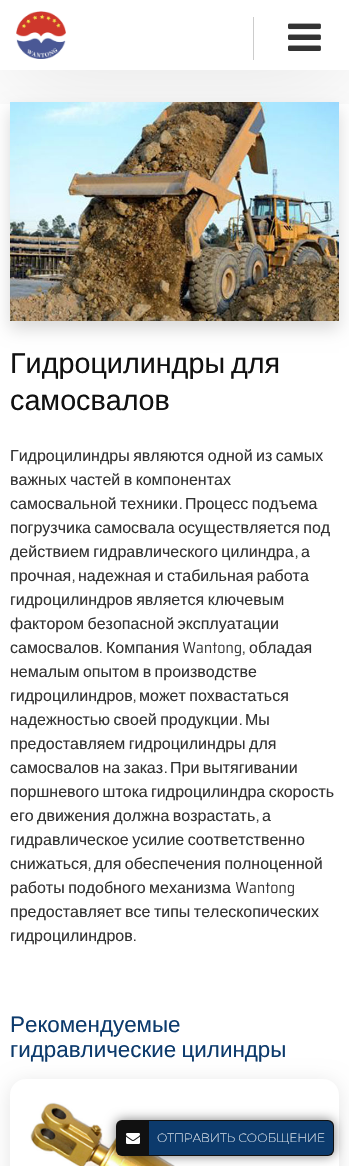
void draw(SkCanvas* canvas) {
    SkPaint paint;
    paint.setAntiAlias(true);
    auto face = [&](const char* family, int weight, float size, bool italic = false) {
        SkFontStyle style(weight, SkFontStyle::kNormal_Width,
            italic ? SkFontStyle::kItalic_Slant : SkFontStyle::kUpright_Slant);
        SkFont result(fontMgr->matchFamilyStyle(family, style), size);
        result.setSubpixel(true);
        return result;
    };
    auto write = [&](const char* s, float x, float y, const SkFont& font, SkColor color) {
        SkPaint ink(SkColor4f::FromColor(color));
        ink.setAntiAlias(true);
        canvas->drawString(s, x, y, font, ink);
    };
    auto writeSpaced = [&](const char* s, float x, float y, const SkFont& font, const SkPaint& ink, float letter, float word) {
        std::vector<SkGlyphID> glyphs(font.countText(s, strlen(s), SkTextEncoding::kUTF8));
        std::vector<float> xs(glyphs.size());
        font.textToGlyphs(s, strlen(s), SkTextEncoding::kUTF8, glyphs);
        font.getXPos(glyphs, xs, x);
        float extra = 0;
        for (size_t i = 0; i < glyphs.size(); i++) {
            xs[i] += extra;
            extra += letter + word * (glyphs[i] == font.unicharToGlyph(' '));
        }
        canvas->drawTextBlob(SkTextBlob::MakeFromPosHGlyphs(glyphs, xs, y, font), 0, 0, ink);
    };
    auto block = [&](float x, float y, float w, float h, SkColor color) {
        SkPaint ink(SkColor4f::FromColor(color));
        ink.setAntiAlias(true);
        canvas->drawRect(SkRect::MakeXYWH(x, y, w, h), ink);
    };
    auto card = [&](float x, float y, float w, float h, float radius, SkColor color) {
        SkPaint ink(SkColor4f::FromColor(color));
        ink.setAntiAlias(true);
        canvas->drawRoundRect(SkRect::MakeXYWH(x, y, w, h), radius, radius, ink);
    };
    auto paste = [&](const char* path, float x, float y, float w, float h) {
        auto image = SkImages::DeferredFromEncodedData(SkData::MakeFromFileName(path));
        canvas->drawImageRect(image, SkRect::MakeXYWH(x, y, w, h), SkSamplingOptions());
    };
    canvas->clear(SK_ColorWHITE);
    canvas->save();
    canvas->clipRect(SkRect::MakeXYWH(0, 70, 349, 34));
    paint.setColor(SkColorSetARGB(33, 0, 0, 0));
    paint.setMaskFilter(SkMaskFilter::MakeBlur(kNormal_SkBlurStyle, 50));
    canvas->drawRect(SkRect::MakeXYWH(4, 4, 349, 70), paint);
    paint.setMaskFilter(nullptr);
    canvas->restore();
    paste("pic1.png", 16, 11, 50, 48);
    block(253, 17, 1, 43, SkColorSetRGB(204, 204, 204));
    paste("pic2.png", 288, 23, 33, 28);
    paint.setColor(SkColorSetARGB(38, 0, 0, 0));
    paint.setMaskFilter(SkMaskFilter::MakeBlur(kNormal_SkBlurStyle, 8));
    canvas->drawRect(SkRect::MakeXYWH(10, 110, 329, 219), paint);
    paint.setMaskFilter(nullptr);
    paste("pic3.png", 10, 102, 329, 219);
    auto kFont1 = face("Liberation Sans", 400, 28.75f);
    paint.setColor(SkColorSetRGB(17, 17, 17));
    writeSpaced("Гидроцилиндры для", 10, 373, kFont1, paint, 0, -2);
    write("самосвалов", 10, 410, kFont1, SkColorSetRGB(17, 17, 17));
    auto kFont2 = face("Liberation Sans", 400, 16);
    paint.setColor(SkColorSetRGB(51, 51, 51));
    writeSpaced("Гидроцилиндры являются одной из самых", 10, 461, kFont2, paint, 0, -1);
    writeSpaced("важных частей в компонентах", 10, 485, kFont2, paint, 0, -1);
    writeSpaced("самосвальной техники", 10, 509, kFont2, paint, 0, -1);
    writeSpaced("Процесс подъема", 185, 509, kFont2, paint, 0, -1);
    canvas->drawPath(SkPathBuilder().moveTo(180, 509).lineTo(180, 507.5f).lineTo(181.5f, 507.5f).lineTo(181.5f, 509).close().detach(), paint);
    writeSpaced("погрузчика самосвала осуществляется под", 10, 533, kFont2, paint, 0, -1);
    writeSpaced("действием гидравлического цилиндра", 10, 557, kFont2, paint, 0, -1);
    paste("pic4.png", 295, 555, 3, 4);
    write("а", 301, 557, kFont2, SkColorSetRGB(51, 51, 51));
    write("прочная", 10, 581, kFont2, SkColorSetRGB(51, 51, 51));
    paste("pic4.png", 72, 579, 3, 4);
    writeSpaced("надежная и стабильная работа", 78, 581, kFont2, paint, 0, -1);
    writeSpaced("гидроцилиндров является ключевым", 10, 605, kFont2, paint, 0, -1);
    writeSpaced("фактором безопасной эксплуатации", 10, 629, kFont2, paint, 0, -1);
    write("самосвалов", 10, 653, kFont2, SkColorSetRGB(51, 51, 51));
    canvas->drawPath(SkPathBuilder().moveTo(100, 653).lineTo(100, 651.5f).lineTo(101.5f, 651.5f).lineTo(101.5f, 653).close().detach(), paint);
    write("Компания", 106, 653, kFont2, SkColorSetRGB(51, 51, 51));
    paste("pic5.png", 182, 642, 63, 15);
    write("обладая", 249, 653, kFont2, SkColorSetRGB(51, 51, 51));
    writeSpaced("немалым опытом в производстве", 10, 677, kFont2, paint, 0, -1);
    write("гидроцилиндров", 10, 701, kFont2, SkColorSetRGB(51, 51, 51));
    paste("pic4.png", 133, 699, 3, 4);
    writeSpaced("может похвастаться", 139, 701, kFont2, paint, 0, -1);
    writeSpaced("надежностью своей продукции", 10, 725, kFont2, paint, 0, -1);
    canvas->drawPath(SkPathBuilder().moveTo(240, 725).lineTo(240, 723.5f).lineTo(241.5f, 723.5f).lineTo(241.5f, 725).close().detach(), paint);
    write("Мы", 245, 725, kFont2, SkColorSetRGB(51, 51, 51));
    writeSpaced("предоставляем гидроцилиндры для", 10, 749, kFont2, paint, 0, -1);
    writeSpaced("самосвалов на заказ", 10, 773, kFont2, paint, 0, -1);
    canvas->drawPath(SkPathBuilder().moveTo(165, 773).lineTo(165, 771.5f).lineTo(166.5f, 771.5f).lineTo(166.5f, 773).close().detach(), paint);
    writeSpaced("При вытягивании", 170, 773, kFont2, paint, 0, -1);
    writeSpaced("поршневого штока гидроцилиндра скорость", 10, 797, kFont2, paint, 0, -1);
    writeSpaced("его движения должна возрастать", 10, 821, kFont2, paint, 0, -1);
    paste("pic4.png", 256, 819, 3, 4);
    write("а", 262, 821, kFont2, SkColorSetRGB(51, 51, 51));
    writeSpaced("гидравлическое усилие соответственно", 10, 845, kFont2, paint, 0, -1);
    write("снижаться", 10, 869, kFont2, SkColorSetRGB(51, 51, 51));
    paste("pic4.png", 88, 867, 3, 4);
    writeSpaced("для обеспечения полноценной", 94, 869, kFont2, paint, 0, -1);
    writeSpaced("работы подобного механизма", 10, 893, kFont2, paint, 0, -1);
    paste("pic6.png", 235, 882, 59, 15);
    writeSpaced("предоставляет все типы телескопических", 10, 917, kFont2, paint, 0, -1);
    write("гидроцилиндров", 10, 941, kFont2, SkColorSetRGB(51, 51, 51));
    canvas->drawPath(SkPathBuilder().moveTo(134, 941).lineTo(134, 939.5f).lineTo(135.5f, 939.5f).lineTo(135.5f, 941).close().detach(), paint);
    auto kFont3 = face("Liberation Sans", 400, 22.4f);
    write("Рекомендуемые", 10, 1032, kFont3, SkColorSetRGB(12, 58, 108));
    paint.setColor(SkColorSetRGB(12, 58, 108));
    writeSpaced("гидравлические цилиндры", 10, 1057, kFont3, paint, 0, -1);
    canvas->save();
    canvas->clipPath(SkPathBuilder(SkPathFillType::kEvenOdd).moveTo(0, 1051).lineTo(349, 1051).lineTo(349, 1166).lineTo(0, 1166).close().moveTo(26, 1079).lineTo(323, 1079).cubicTo(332, 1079, 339, 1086, 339, 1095).lineTo(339, 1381).cubicTo(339, 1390, 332, 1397, 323, 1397).lineTo(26, 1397).cubicTo(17, 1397, 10, 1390, 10, 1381).lineTo(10, 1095).cubicTo(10, 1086, 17, 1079, 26, 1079).close().detach(), true);
    paint.setColor(SkColorSetARGB(26, 0, 0, 0));
    paint.setMaskFilter(SkMaskFilter::MakeBlur(kNormal_SkBlurStyle, 10));
    canvas->drawRoundRect(SkRect::MakeXYWH(10, 1082, 329, 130), 16, 16, paint);
    paint.setMaskFilter(nullptr);
    canvas->restore();
    paste("pic7.png", 30, 1102, 145, 64);
    paint.setColor(SkColorSetARGB(128, 0, 0, 0));
    paint.setMaskFilter(SkMaskFilter::MakeBlur(kNormal_SkBlurStyle, 6));
    canvas->drawRoundRect(SkRect::MakeXYWH(116, 1120, 218, 36), 6, 6, paint);
    paint.setMaskFilter(nullptr);
    card(116, 1120, 218, 36, 6, SkColorSetRGB(17, 17, 17));
    paste("pic8.png", 126, 1133, 14, 11);
    paint.setColor(SkColorSetRGB(12, 58, 108));
    canvas->drawPath(SkPathBuilder().moveTo(149, 1121).lineTo(327, 1121).cubicTo(330.5f, 1121, 333, 1123.5f, 333, 1127).lineTo(333, 1149).cubicTo(333, 1152.5f, 330.5f, 1155, 327, 1155).lineTo(149, 1155).close().detach(), paint);
    auto kFont4 = face("Montserrat", 200, 12);
    write("ОТПРАВИТЬ СООБЩЕНИЕ", 157, 1142, kFont4, SK_ColorWHITE);
}
